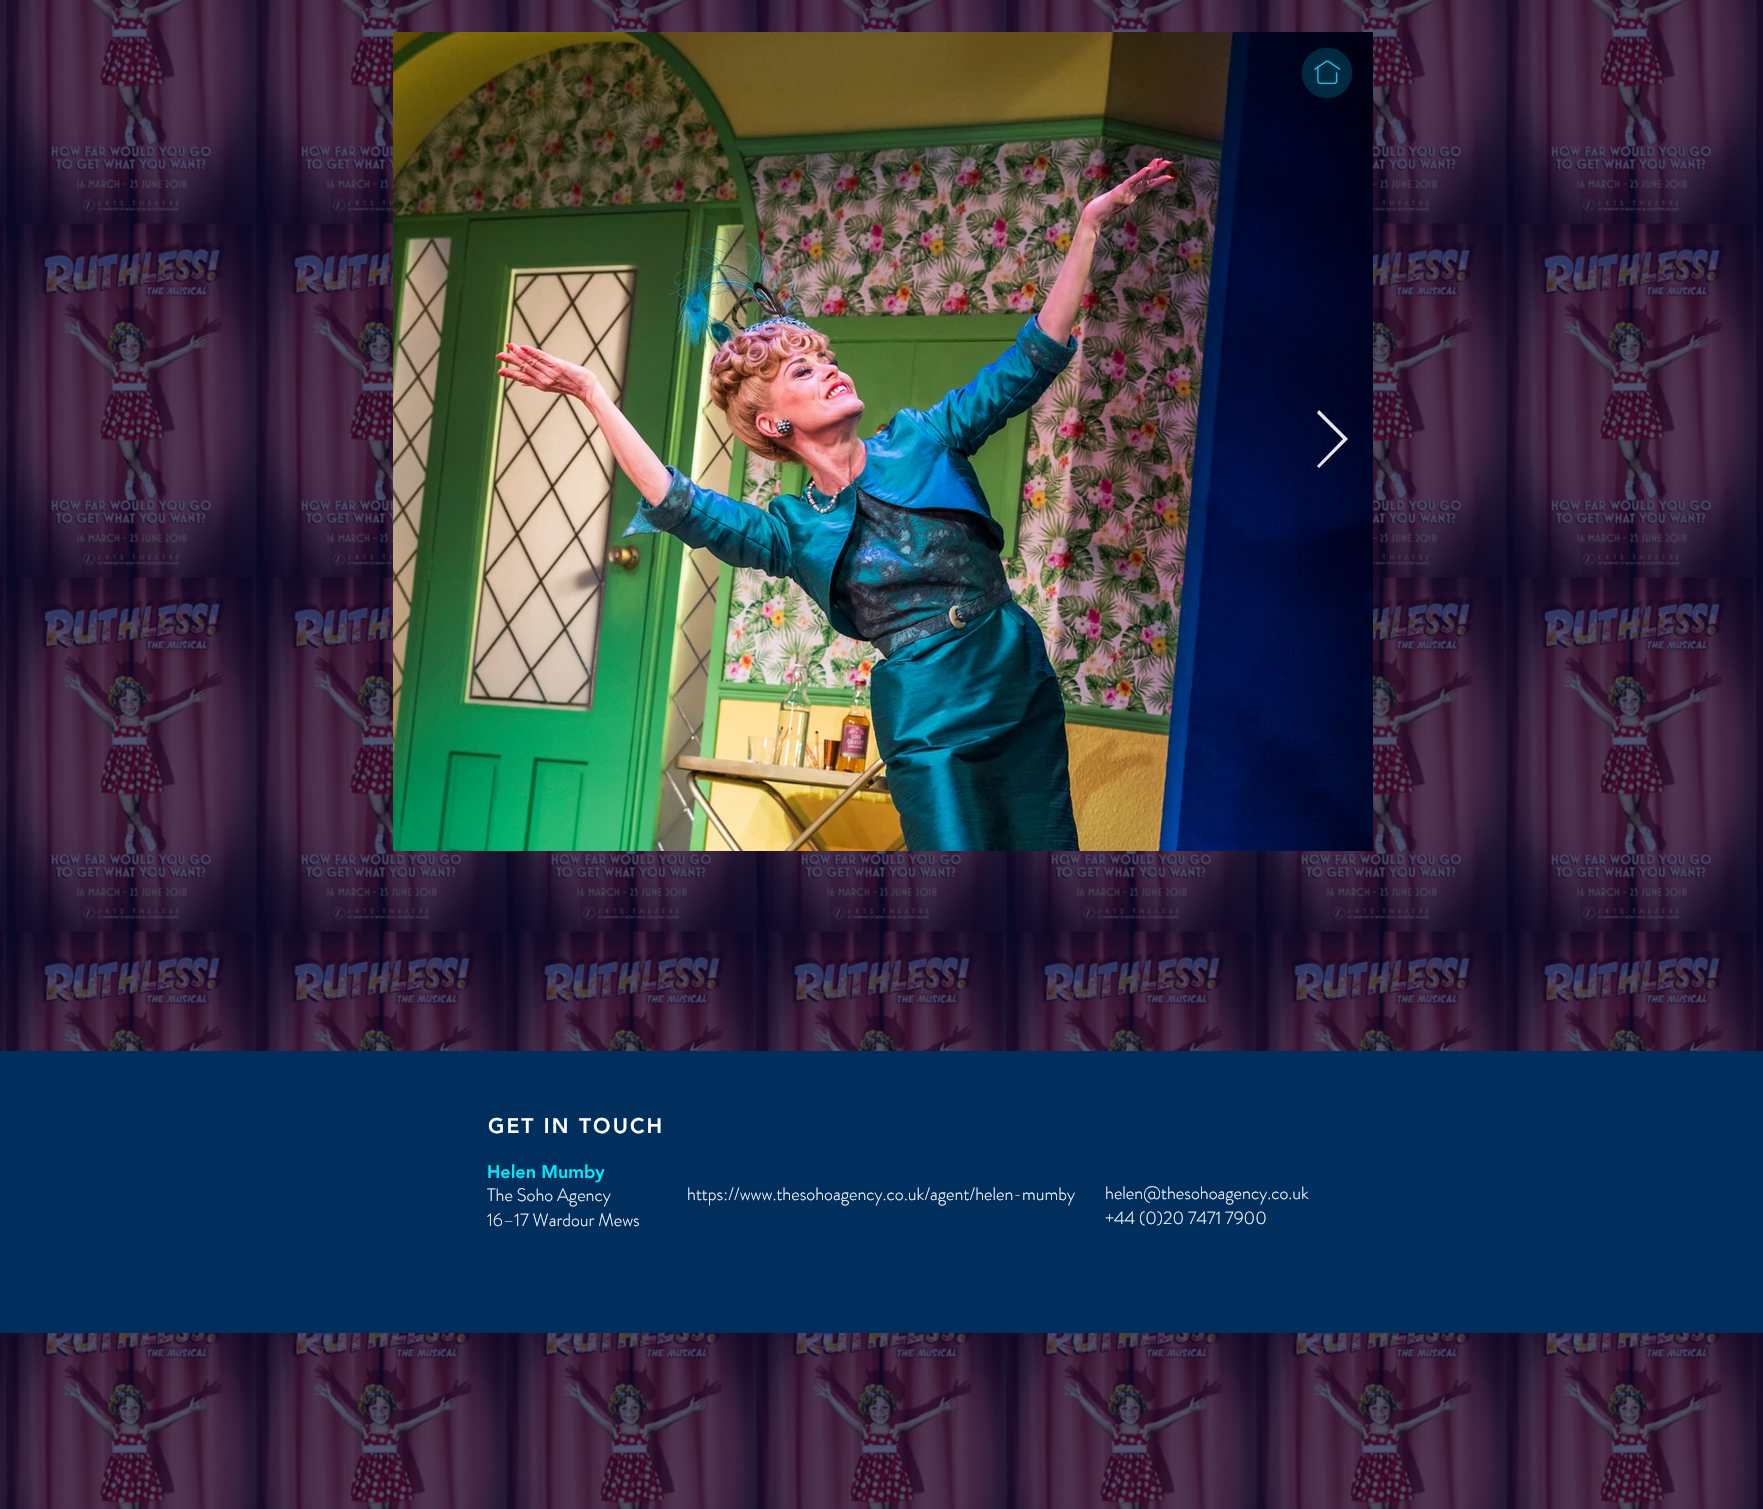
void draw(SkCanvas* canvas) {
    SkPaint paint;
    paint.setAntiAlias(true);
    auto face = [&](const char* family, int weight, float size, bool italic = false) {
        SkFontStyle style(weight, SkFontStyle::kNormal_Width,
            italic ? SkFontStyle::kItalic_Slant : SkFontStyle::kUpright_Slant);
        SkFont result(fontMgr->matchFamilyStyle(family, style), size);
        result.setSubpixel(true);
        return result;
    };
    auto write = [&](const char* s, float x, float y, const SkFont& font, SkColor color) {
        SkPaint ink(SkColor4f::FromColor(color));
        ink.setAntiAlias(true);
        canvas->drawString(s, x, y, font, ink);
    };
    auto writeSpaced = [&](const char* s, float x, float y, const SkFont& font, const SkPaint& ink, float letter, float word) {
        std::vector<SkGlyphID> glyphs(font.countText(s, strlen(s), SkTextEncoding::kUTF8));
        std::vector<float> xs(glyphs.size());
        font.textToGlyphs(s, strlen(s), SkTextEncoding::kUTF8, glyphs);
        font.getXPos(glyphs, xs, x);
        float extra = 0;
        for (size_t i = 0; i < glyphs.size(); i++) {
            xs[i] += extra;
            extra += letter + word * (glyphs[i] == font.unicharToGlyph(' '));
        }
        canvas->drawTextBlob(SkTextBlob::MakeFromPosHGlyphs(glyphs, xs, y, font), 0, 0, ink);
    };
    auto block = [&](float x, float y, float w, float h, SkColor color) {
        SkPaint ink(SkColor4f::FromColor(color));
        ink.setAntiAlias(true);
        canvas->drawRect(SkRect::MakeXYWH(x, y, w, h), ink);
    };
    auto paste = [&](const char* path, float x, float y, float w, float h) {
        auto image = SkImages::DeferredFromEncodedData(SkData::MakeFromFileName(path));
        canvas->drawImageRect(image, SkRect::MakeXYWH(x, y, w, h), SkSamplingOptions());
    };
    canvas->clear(SkColorSetRGB(4, 10, 51));
    paste("pic1.png", 0, 0, 1763, 1509);
    paste("pic2.png", 393, 32, 980, 819);
    paint.setColor(SkColorSetARGB(230, 255, 255, 255));
    canvas->drawPath(SkPathBuilder().moveTo(1317, 413).lineTo(1319, 410).lineTo(1348, 439).lineTo(1319, 468).lineTo(1317, 466).lineTo(1343, 439).close().detach(), paint);
    paste("pic3.png", 1301, 47, 52, 52);
    block(0, 1051, 1763, 282, SkColorSetRGB(0, 46, 93));
    auto kFont1 = face("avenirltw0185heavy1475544", 900, 21);
    paint.setColor(SK_ColorWHITE);
    writeSpaced("GET IN TOUCH", 488, 1133, kFont1, paint, 2.1f, 0);
    auto kFont2 = face("avenirltw0185heavy1475544", 900, 18);
    write("Helen Mumby", 487, 1178, kFont2, SkColorSetRGB(0, 234, 250));
    auto kFont3 = face("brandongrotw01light", 300, 18);
    write("The Soho Agency", 487, 1201, kFont3, SK_ColorWHITE);
    write("16–17 Wardour Mews", 487, 1226, kFont3, SK_ColorWHITE);
    write("https://www.thesohoagency.co.uk/agent/helen-mumby", 687, 1200, kFont3, SK_ColorWHITE);
    write("helen@thesohoagency.co.uk", 1105, 1199, kFont3, SK_ColorWHITE);
    write("+44 (0)20 7471 7900", 1105, 1224, kFont3, SK_ColorWHITE);
}
